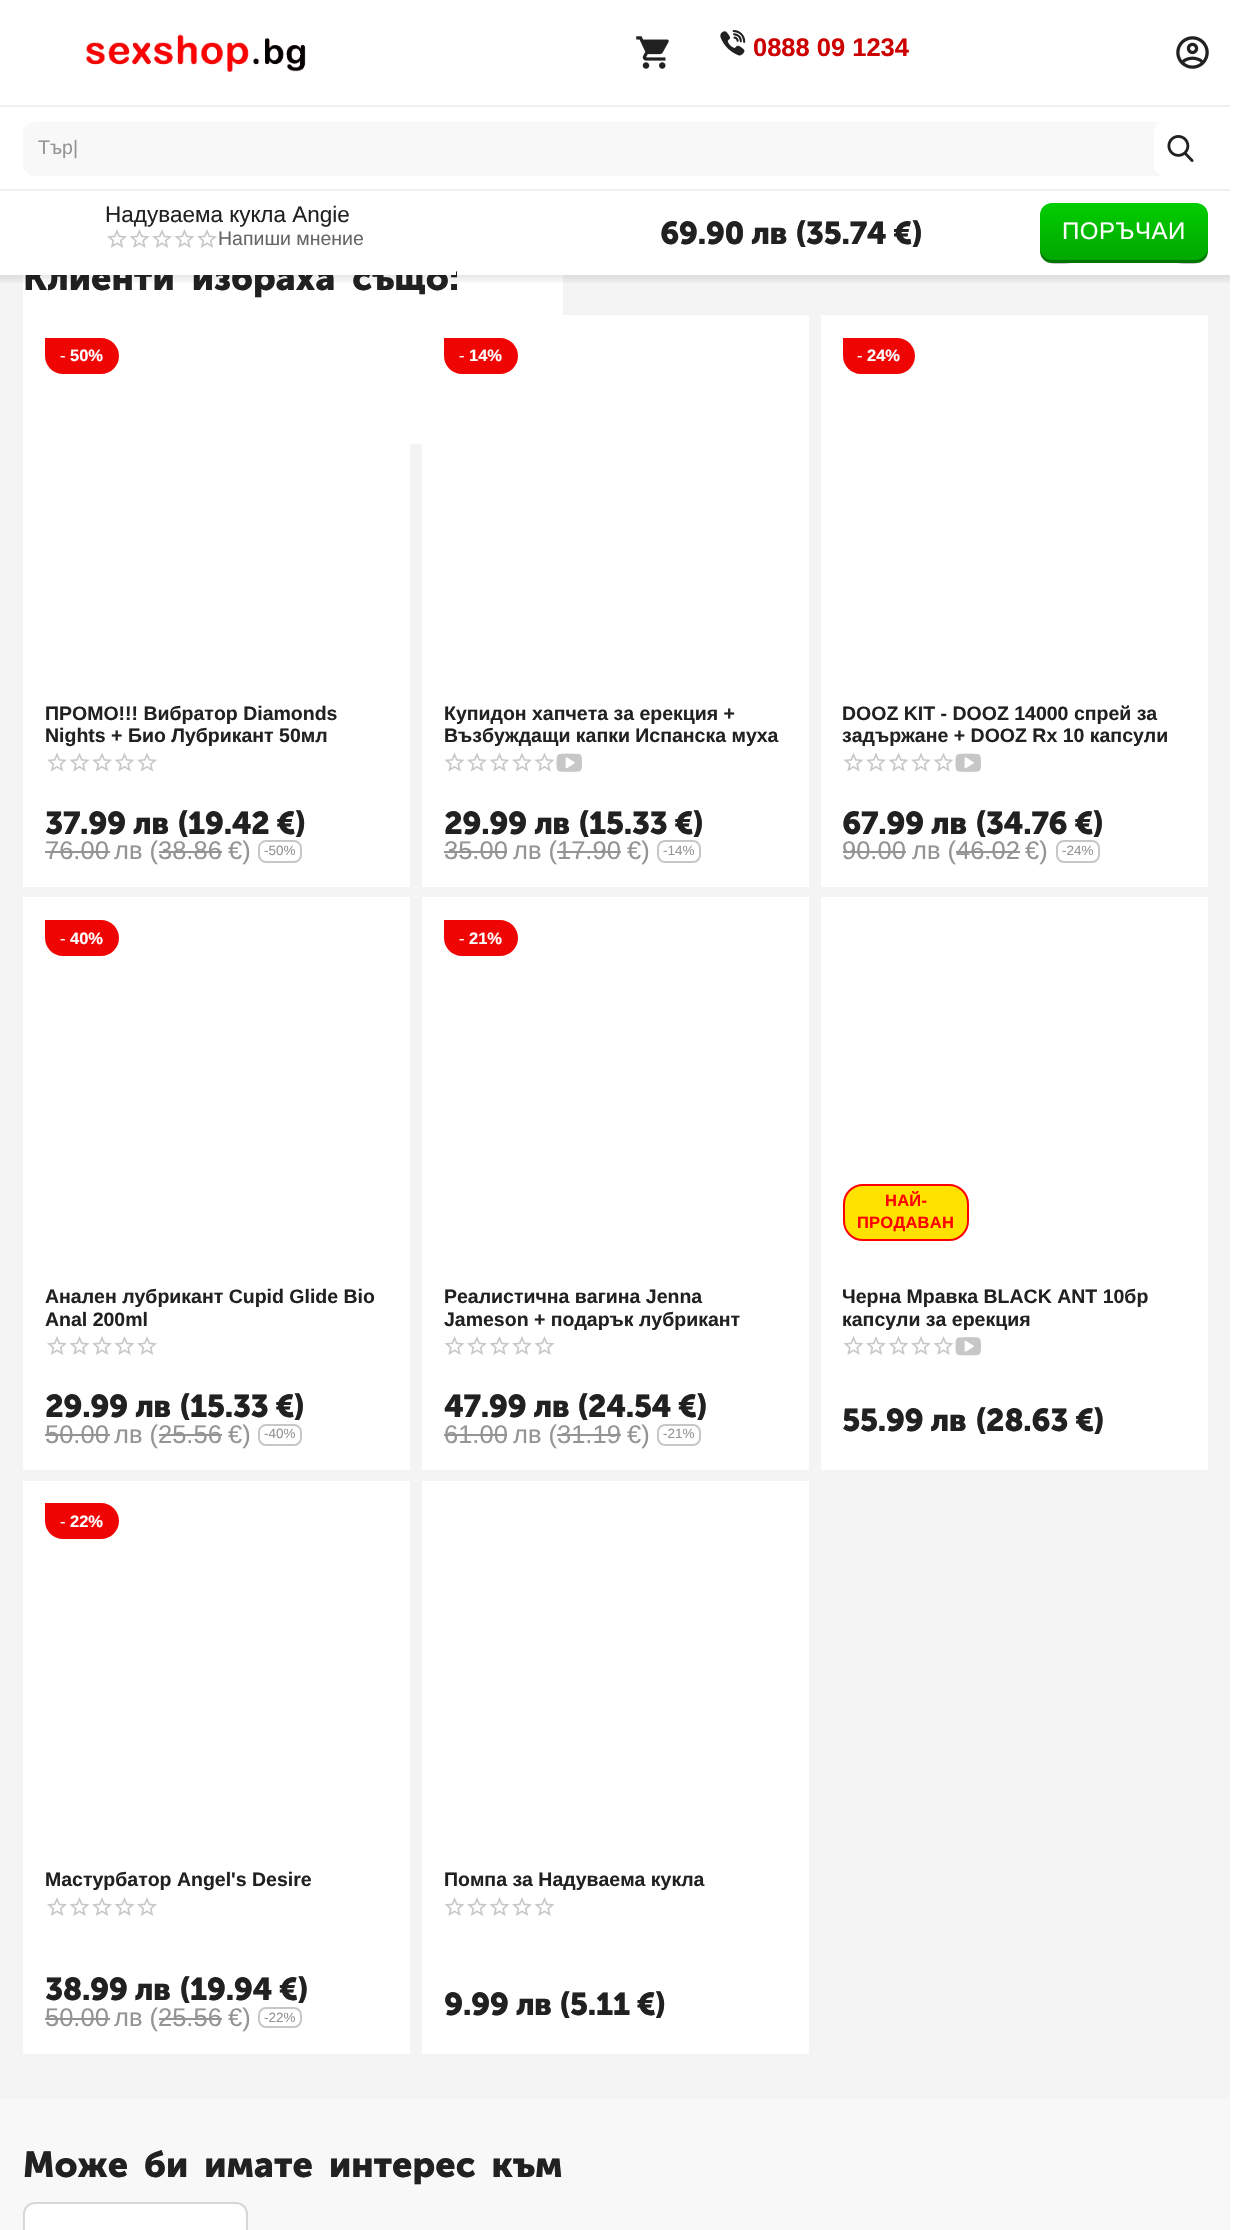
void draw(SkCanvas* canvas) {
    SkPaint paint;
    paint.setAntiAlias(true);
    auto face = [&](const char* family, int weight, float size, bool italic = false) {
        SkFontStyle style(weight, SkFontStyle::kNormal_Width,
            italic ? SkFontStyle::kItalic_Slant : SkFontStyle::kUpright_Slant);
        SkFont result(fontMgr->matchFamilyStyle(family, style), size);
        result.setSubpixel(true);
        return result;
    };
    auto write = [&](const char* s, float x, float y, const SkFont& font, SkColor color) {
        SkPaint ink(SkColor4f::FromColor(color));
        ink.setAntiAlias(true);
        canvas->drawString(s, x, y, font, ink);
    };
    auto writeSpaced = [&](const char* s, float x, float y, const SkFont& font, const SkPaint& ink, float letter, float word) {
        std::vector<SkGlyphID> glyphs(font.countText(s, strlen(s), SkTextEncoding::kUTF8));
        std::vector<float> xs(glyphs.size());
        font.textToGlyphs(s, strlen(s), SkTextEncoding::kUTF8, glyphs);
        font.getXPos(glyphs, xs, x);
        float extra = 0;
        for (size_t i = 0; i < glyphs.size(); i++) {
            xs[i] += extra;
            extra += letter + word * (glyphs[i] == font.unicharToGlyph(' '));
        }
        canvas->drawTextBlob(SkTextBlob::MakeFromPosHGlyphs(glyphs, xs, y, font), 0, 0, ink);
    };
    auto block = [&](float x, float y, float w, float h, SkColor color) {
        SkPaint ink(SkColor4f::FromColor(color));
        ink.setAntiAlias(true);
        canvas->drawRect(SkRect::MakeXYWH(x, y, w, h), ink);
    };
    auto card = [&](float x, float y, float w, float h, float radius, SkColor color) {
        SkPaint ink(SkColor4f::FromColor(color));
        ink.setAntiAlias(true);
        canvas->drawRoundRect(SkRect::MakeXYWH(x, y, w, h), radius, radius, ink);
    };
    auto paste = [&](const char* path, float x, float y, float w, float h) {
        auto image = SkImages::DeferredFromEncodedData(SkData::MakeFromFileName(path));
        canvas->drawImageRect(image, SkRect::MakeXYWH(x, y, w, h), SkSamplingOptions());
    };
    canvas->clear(SK_ColorWHITE);
    block(0, 275, 1230, 1824, SkColorSetRGB(244, 244, 244));
    paste("pic1.png", 85, 34, 221, 38);
    paste("pic2.png", 636, 36, 33, 33);
    paste("pic3.png", 720, 30, 26, 26);
    auto kFont1 = face("Liberation Sans", 700, 25.5f);
    write("0888 09 1234", 753, 56, kFont1, SkColorSetRGB(204, 0, 0));
    paste("pic4.png", 1176, 36, 33, 33);
    block(0, 105, 1230, 2, SkColorSetRGB(240, 240, 240));
    card(23, 122, 1185, 54, 12, SkColorSetRGB(248, 248, 248));
    auto kFont2 = face("Liberation Sans", 400, 19.5f);
    write("Тър|", 38, 154, kFont2, SkColorSetRGB(148, 148, 148));
    card(1154, 122, 54, 54, 9, SK_ColorWHITE);
    paste("pic5.png", 1167, 135, 27, 27);
    block(23, 275, 540, 169, SK_ColorWHITE);
    auto kFont3 = face("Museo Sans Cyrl", 700, 36);
    paint.setColor(SkColorSetRGB(33, 33, 33));
    writeSpaced("Клиенти избраха също:", 23, 290, kFont3, paint, 0, 8);
    block(25, 263, 431, 12, SK_ColorWHITE);
    block(0, 189, 1230, 2, SkColorSetRGB(240, 240, 240));
    auto kFont4 = face("Liberation Sans", 400, 22.5f);
    write("Надуваема кукла Angie", 105, 222, kFont4, SkColorSetRGB(33, 33, 33));
    paste("pic6.png", 107, 229, 20, 19);
    paste("pic7.png", 129, 229, 21, 19);
    paste("pic6.png", 152, 229, 20, 19);
    paste("pic7.png", 174, 229, 21, 19);
    paste("pic6.png", 197, 229, 20, 19);
    write("Напиши мнение", 218, 245, kFont2, SkColorSetRGB(102, 102, 102));
    auto kFont5 = face("Museo Sans Cyrl", 700, 31.5f);
    writeSpaced("69.90 лв", 660, 244, kFont5, paint, -0.6f, 0);
    writeSpaced("(35.74 €)", 796, 244, kFont5, paint, -0.6f, 0);
    {
        const SkColor colors[] = {SkColorSetRGB(1, 165, 0), SkColorSetRGB(1, 206, 0)};
        const float stops[] = {0, 1};
        const SkPoint ends[] = {{1124, 263}, {1124, 203}};
        paint.setShader(SkGradientShader::MakeLinear(ends, colors, stops, 2, SkTileMode::kClamp));
        paint.setAlpha(255);
    }
    canvas->drawRoundRect(SkRect::MakeXYWH(1040, 203, 168, 60), 12, 12, paint);
    paint.setShader(nullptr);
    paint.setColor(SkColorSetARGB(77, 0, 0, 0));
    canvas->drawPath(SkPathBuilder().moveTo(1040, 248).cubicTo(1040, 269, 1060, 263, 1076, 263).lineTo(1172, 263).cubicTo(1188, 263, 1208, 269, 1208, 248).cubicTo(1208, 254, 1202, 260, 1196, 260).lineTo(1052, 260).cubicTo(1045, 260, 1040, 254, 1040, 248).close().detach(), paint);
    canvas->save();
    canvas->clipRect(SkRect::MakeXYWH(1062, 221, 123, 24));
    auto kFont6 = face("Liberation Sans", 400, 24);
    paint.setColor(SK_ColorWHITE);
    writeSpaced("ПОРЪЧАЙ", 1062, 239, kFont6, paint, 0.5f, 0);
    canvas->restore();
    {
        const SkColor colors[] = {SkColorSetARGB(26, 0, 0, 0), SkColorSetARGB(0, 0, 0, 0)};
        const float stops[] = {0, 1};
        const SkPoint ends[] = {{615, 274}, {615, 285}};
        paint.setShader(SkGradientShader::MakeLinear(ends, colors, stops, 2, SkTileMode::kClamp));
        paint.setAlpha(255);
    }
    canvas->drawRect(SkRect::MakeXYWH(0, 275, 1230, 8), paint);
    block(23, 444, 387, 443, SK_ColorWHITE);
    paint.setShader(nullptr);
    paint.setColor(SkColorSetRGB(240, 5, 5));
    canvas->drawPath(SkPathBuilder().moveTo(45, 338).lineTo(101, 338).cubicTo(111, 338, 119, 346, 119, 356).cubicTo(119, 366, 111, 374, 101, 374).lineTo(63, 374).cubicTo(53, 374, 45, 366, 45, 356).close().detach(), paint);
    auto kFont7 = face("Liberation Sans", 400, 16.5f);
    write("-", 60, 361, kFont7, SK_ColorWHITE);
    auto kFont8 = face("Liberation Sans", 700, 16.5f);
    write("50%", 70, 361, kFont8, SK_ColorWHITE);
    auto kFont9 = face("Liberation Sans", 700, 19.5f);
    write("ПРОМО!!! Вибратор Diamonds", 45, 720, kFont9, SkColorSetRGB(33, 33, 33));
    write("Nights + Био Лубрикант 50мл", 45, 742, kFont9, SkColorSetRGB(33, 33, 33));
    paste("pic8.png", 47, 753, 20, 19);
    paste("pic9.png", 69, 752, 21, 20);
    paste("pic8.png", 92, 753, 20, 19);
    paste("pic9.png", 114, 752, 21, 20);
    paste("pic8.png", 137, 753, 20, 19);
    paint.setColor(SkColorSetRGB(33, 33, 33));
    writeSpaced("37.99 лв", 45, 834, kFont5, paint, -0.6f, 0);
    writeSpaced("(19.42 €)", 178, 834, kFont5, paint, -0.6f, 0);
    auto kFont10 = face("Liberation Sans", 400, 25.5f);
    write("76.00", 45, 859, kFont10, SkColorSetRGB(148, 148, 148));
    block(45, 851, 65, 2, SkColorSetRGB(148, 148, 148));
    write("лв (38.86", 114, 859, kFont10, SkColorSetRGB(148, 148, 148));
    block(159, 851, 63, 2, SkColorSetRGB(148, 148, 148));
    write("€)", 228, 859, kFont10, SkColorSetRGB(148, 148, 148));
    paint.setStyle(SkPaint::kStroke_Style);
    paint.setStrokeWidth(2);
    paint.setColor(SkColorSetRGB(199, 199, 199));
    canvas->drawRoundRect(SkRect::MakeXYWH(259, 841, 42, 21), 7, 7, paint);
    auto kFont11 = face("Liberation Sans", 400, 13.5f);
    write("-50%", 264, 855, kFont11, SkColorSetRGB(148, 148, 148));
    block(422, 315, 387, 572, SK_ColorWHITE);
    paint.setStyle(SkPaint::kFill_Style);
    paint.setColor(SkColorSetRGB(240, 5, 5));
    canvas->drawPath(SkPathBuilder().moveTo(444, 338).lineTo(500, 338).cubicTo(510, 338, 518, 346, 518, 356).cubicTo(518, 366, 510, 374, 500, 374).lineTo(462, 374).cubicTo(452, 374, 444, 366, 444, 356).close().detach(), paint);
    write("-", 459, 361, kFont7, SK_ColorWHITE);
    write("14%", 469, 361, kFont8, SK_ColorWHITE);
    write("Купидон хапчета за ерекция +", 444, 720, kFont9, SkColorSetRGB(33, 33, 33));
    write("Възбуждащи капки Испанска муха", 444, 742, kFont9, SkColorSetRGB(33, 33, 33));
    paste("pic9.png", 444, 752, 21, 20);
    paste("pic8.png", 467, 753, 20, 19);
    paste("pic9.png", 489, 752, 21, 20);
    paste("pic8.png", 512, 753, 20, 19);
    paste("pic9.png", 534, 752, 21, 20);
    paste("pic10.png", 556, 753, 26, 19);
    paint.setColor(SkColorSetRGB(33, 33, 33));
    writeSpaced("29.99 лв", 444, 834, kFont5, paint, -0.6f, 0);
    writeSpaced("(15.33 €)", 579, 834, kFont5, paint, -0.6f, 0);
    write("35.00", 444, 859, kFont10, SkColorSetRGB(148, 148, 148));
    block(444, 851, 63, 2, SkColorSetRGB(148, 148, 148));
    write("лв (17.90", 513, 859, kFont10, SkColorSetRGB(148, 148, 148));
    block(557, 851, 64, 2, SkColorSetRGB(148, 148, 148));
    write("€)", 627, 859, kFont10, SkColorSetRGB(148, 148, 148));
    paint.setStyle(SkPaint::kStroke_Style);
    paint.setColor(SkColorSetRGB(199, 199, 199));
    canvas->drawRoundRect(SkRect::MakeXYWH(658, 841, 42, 21), 7, 7, paint);
    write("-14%", 663, 855, kFont11, SkColorSetRGB(148, 148, 148));
    block(821, 315, 387, 572, SK_ColorWHITE);
    paint.setStyle(SkPaint::kFill_Style);
    paint.setColor(SkColorSetRGB(240, 5, 5));
    canvas->drawPath(SkPathBuilder().moveTo(843, 338).lineTo(897, 338).cubicTo(907, 338, 915, 346, 915, 356).cubicTo(915, 366, 907, 374, 897, 374).lineTo(861, 374).cubicTo(851, 374, 843, 366, 843, 356).close().detach(), paint);
    write("-", 857, 361, kFont7, SK_ColorWHITE);
    write("24%", 867, 361, kFont8, SK_ColorWHITE);
    write("DOOZ KIT - DOOZ 14000 спрей за", 842, 720, kFont9, SkColorSetRGB(33, 33, 33));
    write("задържане + DOOZ Rx 10 капсули", 842, 742, kFont9, SkColorSetRGB(33, 33, 33));
    paste("pic9.png", 843, 752, 21, 20);
    paste("pic8.png", 866, 753, 20, 19);
    paste("pic9.png", 888, 752, 21, 20);
    paste("pic8.png", 911, 753, 20, 19);
    paste("pic9.png", 933, 752, 21, 20);
    paste("pic10.png", 955, 753, 26, 19);
    paint.setColor(SkColorSetRGB(33, 33, 33));
    writeSpaced("67.99 лв", 842, 834, kFont5, paint, -0.6f, 0);
    writeSpaced("(34.76 €)", 976, 834, kFont5, paint, -0.6f, 0);
    write("90.00", 842, 859, kFont10, SkColorSetRGB(148, 148, 148));
    block(843, 851, 63, 2, SkColorSetRGB(148, 148, 148));
    write("лв (46.02", 912, 859, kFont10, SkColorSetRGB(148, 148, 148));
    block(956, 851, 64, 2, SkColorSetRGB(148, 148, 148));
    write("€)", 1025, 859, kFont10, SkColorSetRGB(148, 148, 148));
    paint.setStyle(SkPaint::kStroke_Style);
    paint.setColor(SkColorSetRGB(199, 199, 199));
    canvas->drawRoundRect(SkRect::MakeXYWH(1057, 841, 42, 21), 7, 7, paint);
    write("-24%", 1062, 855, kFont11, SkColorSetRGB(148, 148, 148));
    block(23, 897, 387, 573, SK_ColorWHITE);
    paint.setStyle(SkPaint::kFill_Style);
    paint.setColor(SkColorSetRGB(240, 5, 5));
    canvas->drawPath(SkPathBuilder().moveTo(45, 920).lineTo(101, 920).cubicTo(111, 920, 119, 928, 119, 938).cubicTo(119, 948, 111, 956, 101, 956).lineTo(63, 956).cubicTo(53, 956, 45, 948, 45, 938).close().detach(), paint);
    write("-", 60, 944, kFont7, SK_ColorWHITE);
    write("40%", 70, 944, kFont8, SK_ColorWHITE);
    write("Анален лубрикант Cupid Glide Bio", 45, 1303, kFont9, SkColorSetRGB(33, 33, 33));
    write("Anal 200ml", 45, 1326, kFont9, SkColorSetRGB(33, 33, 33));
    paste("pic6.png", 47, 1336, 20, 19);
    paste("pic7.png", 69, 1336, 21, 19);
    paste("pic6.png", 92, 1336, 20, 19);
    paste("pic7.png", 114, 1336, 21, 19);
    paste("pic6.png", 137, 1336, 20, 19);
    paint.setColor(SkColorSetRGB(33, 33, 33));
    writeSpaced("29.99 лв", 45, 1417, kFont5, paint, -0.6f, 0);
    writeSpaced("(15.33 €)", 180, 1417, kFont5, paint, -0.6f, 0);
    write("50.00", 45, 1443, kFont10, SkColorSetRGB(148, 148, 148));
    block(45, 1434, 65, 2, SkColorSetRGB(148, 148, 148));
    write("лв (25.56", 114, 1443, kFont10, SkColorSetRGB(148, 148, 148));
    block(159, 1434, 63, 2, SkColorSetRGB(148, 148, 148));
    write("€)", 228, 1443, kFont10, SkColorSetRGB(148, 148, 148));
    paint.setStyle(SkPaint::kStroke_Style);
    paint.setColor(SkColorSetRGB(199, 199, 199));
    canvas->drawRoundRect(SkRect::MakeXYWH(259, 1425, 42, 20), 7, 7, paint);
    write("-40%", 264, 1438, kFont11, SkColorSetRGB(148, 148, 148));
    block(422, 897, 387, 573, SK_ColorWHITE);
    paint.setStyle(SkPaint::kFill_Style);
    paint.setColor(SkColorSetRGB(240, 5, 5));
    canvas->drawPath(SkPathBuilder().moveTo(444, 920).lineTo(500, 920).cubicTo(510, 920, 518, 928, 518, 938).cubicTo(518, 948, 510, 956, 500, 956).lineTo(462, 956).cubicTo(452, 956, 444, 948, 444, 938).close().detach(), paint);
    write("-", 459, 944, kFont7, SK_ColorWHITE);
    write("21%", 469, 944, kFont8, SK_ColorWHITE);
    write("Реалистична вагина Jenna", 444, 1303, kFont9, SkColorSetRGB(33, 33, 33));
    write("Jameson + подарък лубрикант", 444, 1326, kFont9, SkColorSetRGB(33, 33, 33));
    paste("pic7.png", 444, 1336, 21, 19);
    paste("pic6.png", 467, 1336, 20, 19);
    paste("pic7.png", 489, 1336, 21, 19);
    paste("pic6.png", 512, 1336, 20, 19);
    paste("pic7.png", 534, 1336, 21, 19);
    paint.setColor(SkColorSetRGB(33, 33, 33));
    writeSpaced("47.99 лв", 444, 1417, kFont5, paint, -0.6f, 0);
    writeSpaced("(24.54 €)", 578, 1417, kFont5, paint, -0.6f, 0);
    write("61.00", 444, 1443, kFont10, SkColorSetRGB(148, 148, 148));
    block(444, 1434, 63, 2, SkColorSetRGB(148, 148, 148));
    write("лв (31.19", 513, 1443, kFont10, SkColorSetRGB(148, 148, 148));
    block(557, 1434, 64, 2, SkColorSetRGB(148, 148, 148));
    write("€)", 627, 1443, kFont10, SkColorSetRGB(148, 148, 148));
    paint.setStyle(SkPaint::kStroke_Style);
    paint.setColor(SkColorSetRGB(199, 199, 199));
    canvas->drawRoundRect(SkRect::MakeXYWH(658, 1425, 42, 20), 7, 7, paint);
    write("-21%", 663, 1438, kFont11, SkColorSetRGB(148, 148, 148));
    block(821, 897, 387, 573, SK_ColorWHITE);
    paint.setStyle(SkPaint::kFill_Style);
    paint.setColor(SkColorSetRGB(255, 226, 0));
    canvas->drawRoundRect(SkRect::MakeXYWH(844, 1185, 124, 55), 19, 19, paint);
    paint.setStyle(SkPaint::kStroke_Style);
    paint.setColor(SkColorSetRGB(255, 0, 0));
    canvas->drawRoundRect(SkRect::MakeXYWH(844, 1185, 124, 55), 19, 19, paint);
    paint.setStyle(SkPaint::kFill_Style);
    writeSpaced("НАЙ-", 885, 1206, kFont8, paint, 0.25f, 0);
    writeSpaced("ПРОДАВАН", 857, 1228, kFont8, paint, 0.25f, 0);
    write("Черна Мравка BLACK ANT 10бр", 842, 1303, kFont9, SkColorSetRGB(33, 33, 33));
    write("капсули за ерекция", 842, 1326, kFont9, SkColorSetRGB(33, 33, 33));
    paste("pic7.png", 843, 1336, 21, 19);
    paste("pic6.png", 866, 1336, 20, 19);
    paste("pic7.png", 888, 1336, 21, 19);
    paste("pic6.png", 911, 1336, 20, 19);
    paste("pic7.png", 933, 1336, 21, 19);
    paste("pic11.png", 955, 1337, 26, 19);
    paint.setColor(SkColorSetRGB(33, 33, 33));
    writeSpaced("55.99 лв", 842, 1431, kFont5, paint, -0.6f, 0);
    writeSpaced("(28.63 €)", 976, 1431, kFont5, paint, -0.6f, 0);
    block(23, 1481, 387, 573, SK_ColorWHITE);
    paint.setColor(SkColorSetRGB(240, 5, 5));
    canvas->drawPath(SkPathBuilder().moveTo(45, 1503).lineTo(101, 1503).cubicTo(111, 1503, 119, 1511, 119, 1521).cubicTo(119, 1531, 111, 1539, 101, 1539).lineTo(63, 1539).cubicTo(53, 1539, 45, 1531, 45, 1521).close().detach(), paint);
    write("-", 60, 1527, kFont7, SK_ColorWHITE);
    write("22%", 70, 1527, kFont8, SK_ColorWHITE);
    write("Мастурбатор Angel's Desire", 45, 1886, kFont9, SkColorSetRGB(33, 33, 33));
    paste("pic6.png", 47, 1897, 20, 19);
    paste("pic7.png", 69, 1897, 21, 19);
    paste("pic6.png", 92, 1897, 20, 19);
    paste("pic7.png", 114, 1897, 21, 19);
    paste("pic6.png", 137, 1897, 20, 19);
    paint.setColor(SkColorSetRGB(33, 33, 33));
    writeSpaced("38.99 лв", 45, 2000, kFont5, paint, -0.6f, 0);
    writeSpaced("(19.94 €)", 180, 2000, kFont5, paint, -0.6f, 0);
    write("50.00", 45, 2026, kFont10, SkColorSetRGB(148, 148, 148));
    block(45, 2018, 65, 2, SkColorSetRGB(148, 148, 148));
    write("лв (25.56", 114, 2026, kFont10, SkColorSetRGB(148, 148, 148));
    block(159, 2018, 63, 2, SkColorSetRGB(148, 148, 148));
    write("€)", 228, 2026, kFont10, SkColorSetRGB(148, 148, 148));
    paint.setStyle(SkPaint::kStroke_Style);
    paint.setColor(SkColorSetRGB(199, 199, 199));
    canvas->drawRoundRect(SkRect::MakeXYWH(259, 2008, 42, 19), 7, 7, paint);
    write("-22%", 264, 2022, kFont11, SkColorSetRGB(148, 148, 148));
    block(422, 1481, 387, 573, SK_ColorWHITE);
    write("Помпа за Надуваема кукла", 444, 1886, kFont9, SkColorSetRGB(33, 33, 33));
    paste("pic7.png", 444, 1897, 21, 19);
    paste("pic6.png", 467, 1897, 20, 19);
    paste("pic7.png", 489, 1897, 21, 19);
    paste("pic6.png", 512, 1897, 20, 19);
    paste("pic7.png", 534, 1897, 21, 19);
    paint.setStyle(SkPaint::kFill_Style);
    paint.setColor(SkColorSetRGB(33, 33, 33));
    writeSpaced("9.99 лв", 444, 2015, kFont5, paint, -0.6f, 0);
    writeSpaced("(5.11 €)", 560, 2015, kFont5, paint, -0.6f, 0);
    block(0, 2099, 1230, 131, SkColorSetRGB(248, 248, 248));
    writeSpaced("Може би имате интерес към", 23, 2177, kFont3, paint, 0, 7);
    paint.setColor(SK_ColorWHITE);
    canvas->drawRoundRect(SkRect::MakeXYWH(24, 2203, 223, 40), 11, 11, paint);
    paint.setStyle(SkPaint::kStroke_Style);
    paint.setColor(SkColorSetRGB(215, 215, 215));
    canvas->drawRoundRect(SkRect::MakeXYWH(24, 2203, 223, 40), 11, 11, paint);
}
